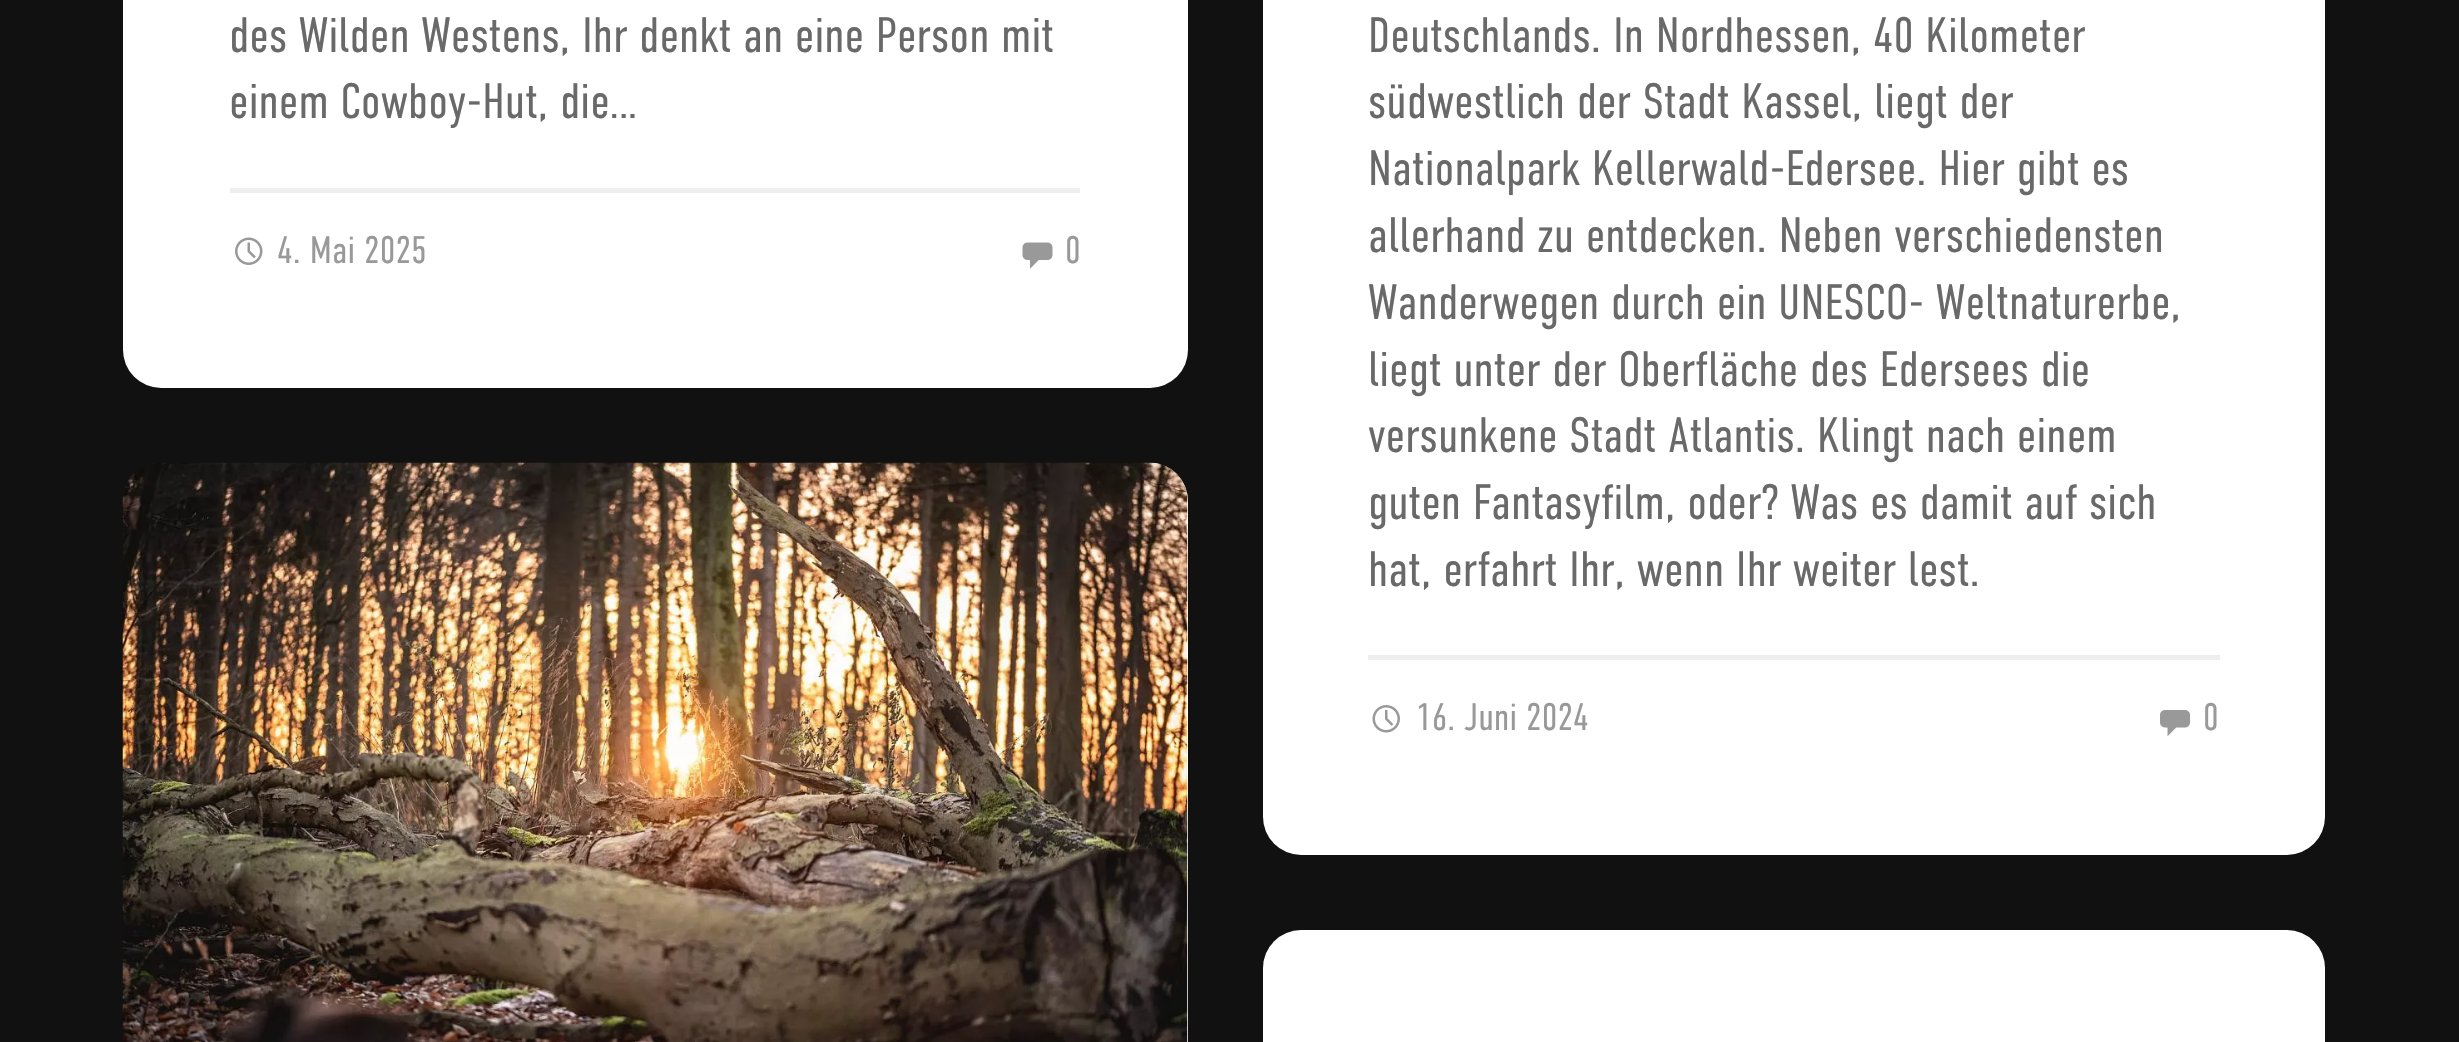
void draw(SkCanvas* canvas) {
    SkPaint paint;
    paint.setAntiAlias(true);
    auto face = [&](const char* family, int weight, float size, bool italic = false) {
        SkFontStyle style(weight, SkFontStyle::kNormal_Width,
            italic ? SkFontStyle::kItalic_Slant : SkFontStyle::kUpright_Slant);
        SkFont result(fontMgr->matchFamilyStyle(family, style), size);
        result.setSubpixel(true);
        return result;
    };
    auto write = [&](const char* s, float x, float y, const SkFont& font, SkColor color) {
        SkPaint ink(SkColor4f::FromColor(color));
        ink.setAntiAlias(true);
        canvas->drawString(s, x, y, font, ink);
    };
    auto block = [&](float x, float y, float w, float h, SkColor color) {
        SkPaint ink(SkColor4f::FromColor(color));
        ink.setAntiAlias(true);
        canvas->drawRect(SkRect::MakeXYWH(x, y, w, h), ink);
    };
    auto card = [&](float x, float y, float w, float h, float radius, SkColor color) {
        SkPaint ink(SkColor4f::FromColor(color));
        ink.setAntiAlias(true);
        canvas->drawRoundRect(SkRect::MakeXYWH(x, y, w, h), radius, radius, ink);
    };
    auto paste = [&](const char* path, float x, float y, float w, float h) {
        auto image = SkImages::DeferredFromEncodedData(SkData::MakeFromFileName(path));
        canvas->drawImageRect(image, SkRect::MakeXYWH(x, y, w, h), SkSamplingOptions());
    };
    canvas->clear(SkColorSetRGB(17, 17, 17));
    card(123, -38, 1065, 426, 38, SK_ColorWHITE);
    auto kFont1 = face("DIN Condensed", 300, 49.5f);
    write("des Wilden Westens, Ihr denkt an eine Person mit", 229, 52, kFont1, SkColorSetRGB(105, 105, 105));
    write("einem Cowboy-Hut, die…", 229, 118, kFont1, SkColorSetRGB(105, 105, 105));
    block(230, 188, 850, 5, SkColorSetRGB(238, 238, 238));
    paste("pic1.png", 235, 237, 28, 28);
    auto kFont2 = face("DIN Condensed", 300, 38.25f);
    write("4. Mai 2025", 277, 263, kFont2, SkColorSetRGB(153, 153, 153));
    paste("pic2.png", 1022, 242, 31, 27);
    write("0", 1065, 263, kFont2, SkColorSetRGB(153, 153, 153));
    card(1263, -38, 1062, 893, 38, SK_ColorWHITE);
    write("Deutschlands. In Nordhessen, 40 Kilometer", 1368, 52, kFont1, SkColorSetRGB(105, 105, 105));
    write("südwestlich der Stadt Kassel, liegt der", 1368, 118, kFont1, SkColorSetRGB(105, 105, 105));
    write("Nationalpark Kellerwald-Edersee. Hier gibt es", 1368, 185, kFont1, SkColorSetRGB(105, 105, 105));
    write("allerhand zu entdecken. Neben verschiedensten", 1368, 252, kFont1, SkColorSetRGB(105, 105, 105));
    write("Wanderwegen durch ein UNESCO- Weltnaturerbe,", 1368, 319, kFont1, SkColorSetRGB(105, 105, 105));
    write("liegt unter der Oberfläche des Edersees die", 1368, 386, kFont1, SkColorSetRGB(105, 105, 105));
    write("versunkene Stadt Atlantis. Klingt nach einem", 1368, 452, kFont1, SkColorSetRGB(105, 105, 105));
    write("guten Fantasyfilm, oder? Was es damit auf sich", 1368, 519, kFont1, SkColorSetRGB(105, 105, 105));
    write("hat, erfahrt Ihr, wenn Ihr weiter lest.", 1368, 586, kFont1, SkColorSetRGB(105, 105, 105));
    block(1368, 655, 852, 5, SkColorSetRGB(238, 238, 238));
    paste("pic3.png", 1372, 705, 28, 28);
    write("16. Juni 2024", 1416, 730, kFont2, SkColorSetRGB(153, 153, 153));
    paste("pic4.png", 2160, 710, 30, 26);
    write("0", 2203, 730, kFont2, SkColorSetRGB(153, 153, 153));
    card(123, 463, 1065, 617, 38, SK_ColorWHITE);
    paste("pic5.png", 122, 462, 1066, 580);
    card(1263, 930, 1062, 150, 38, SK_ColorWHITE);
}
